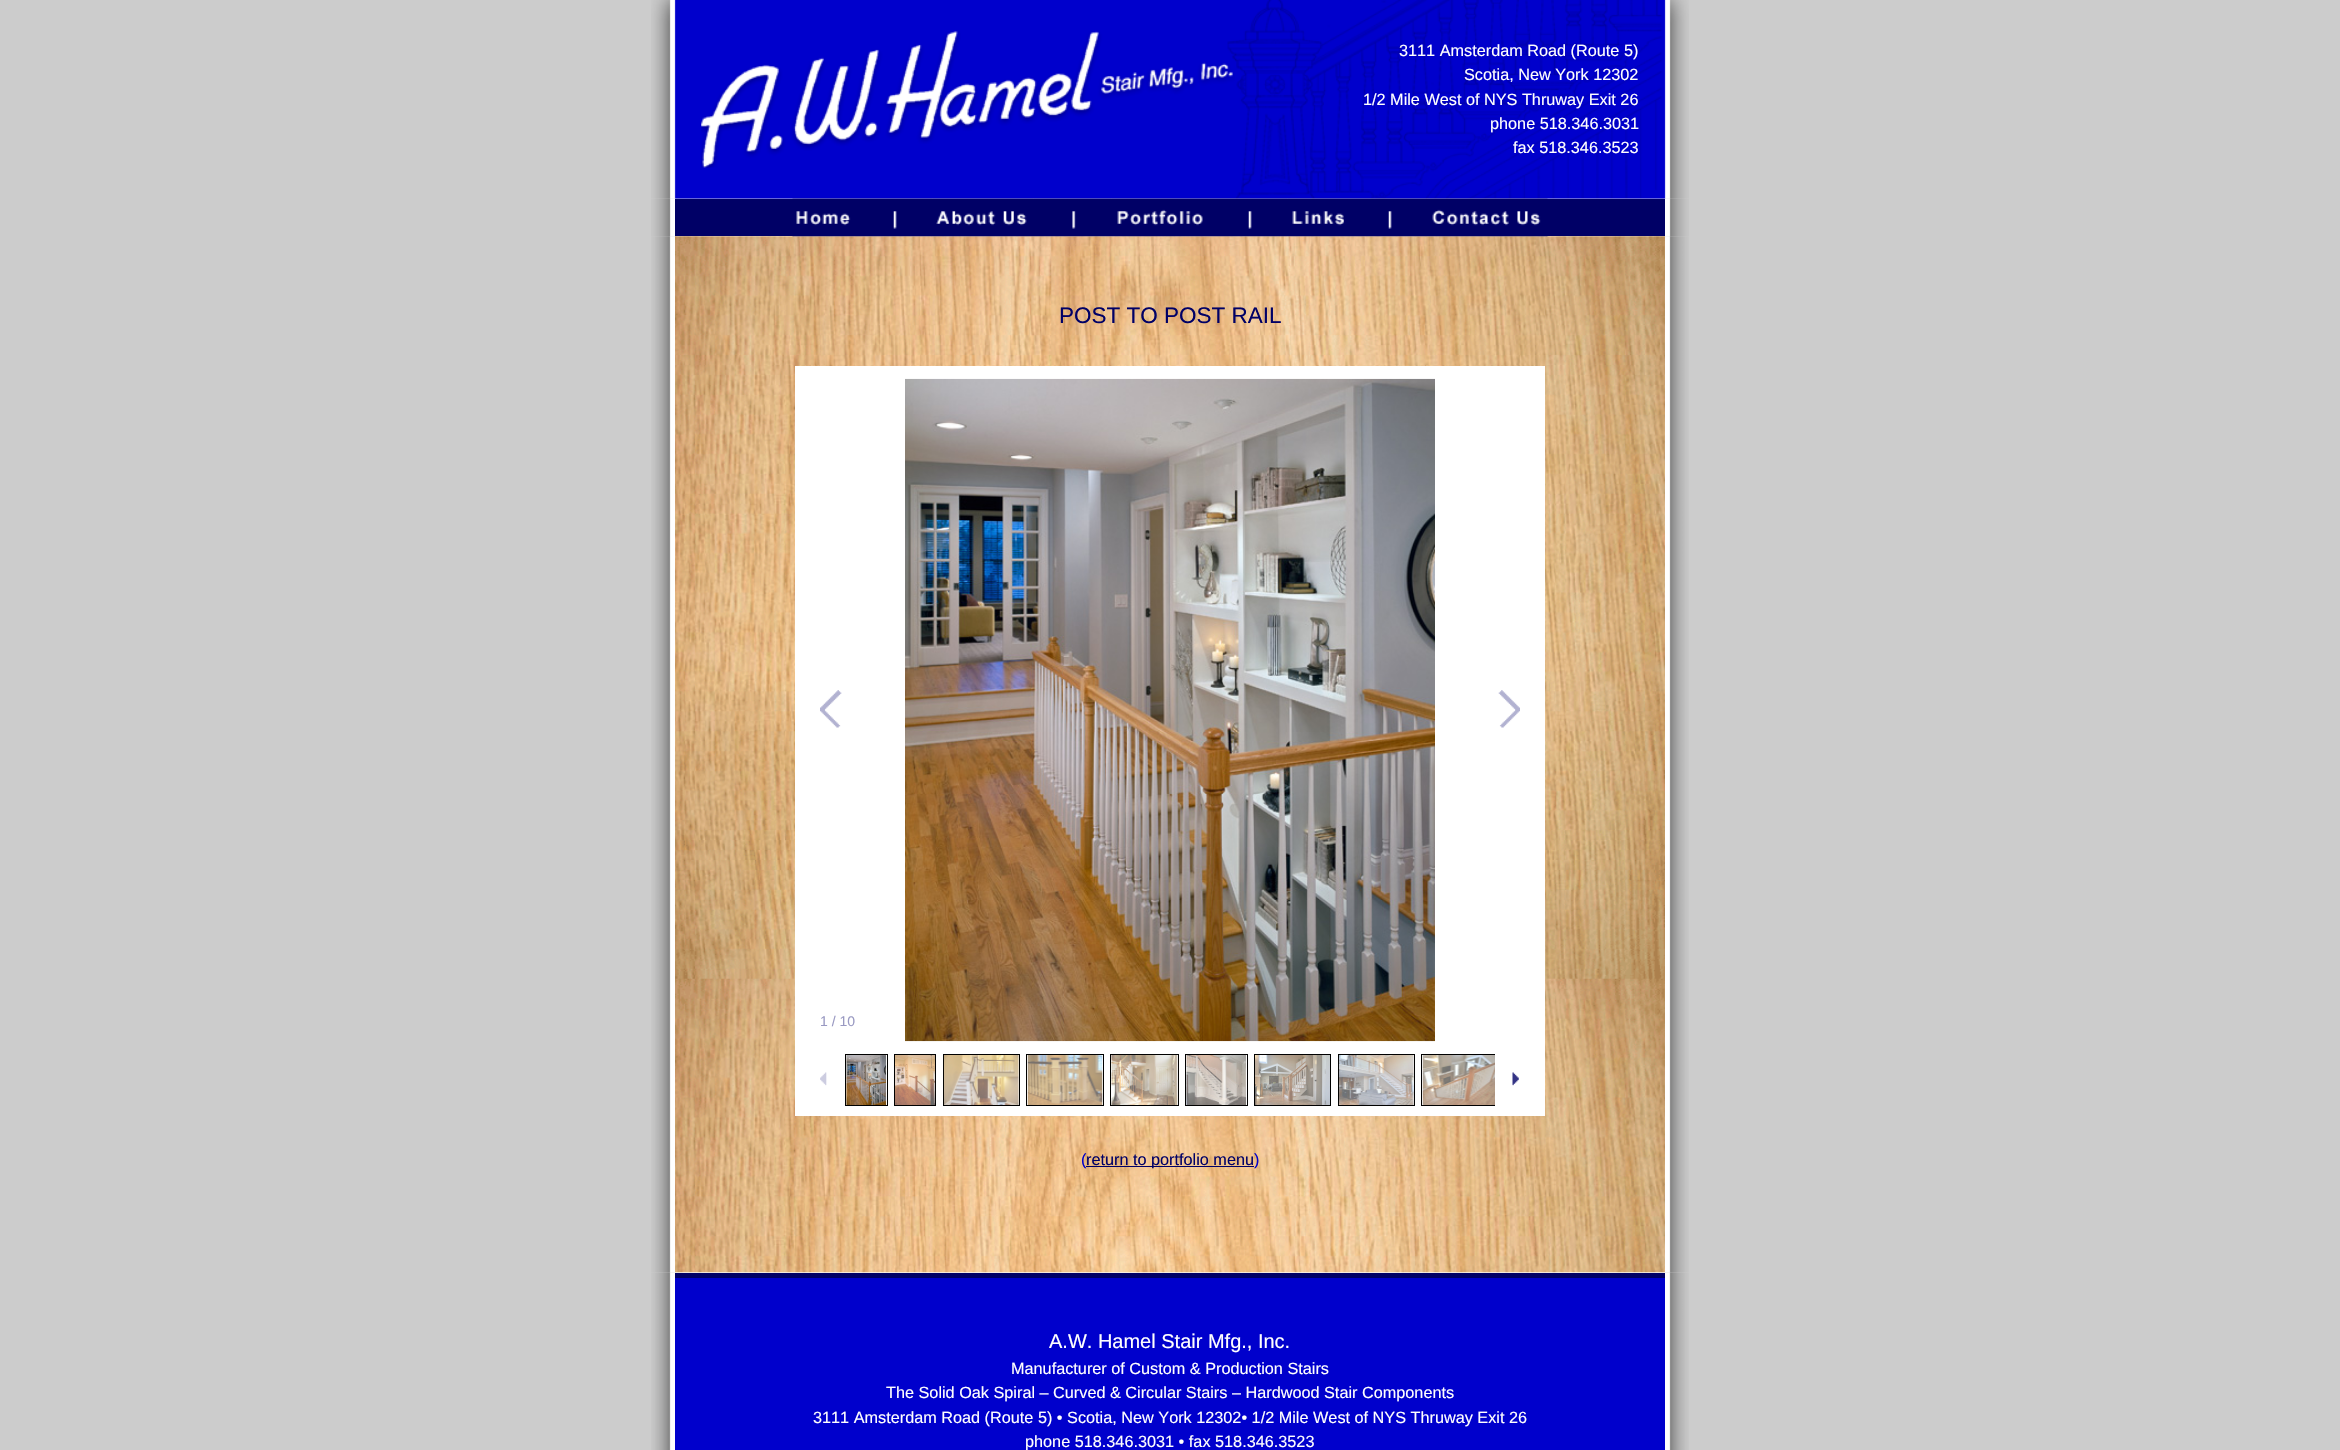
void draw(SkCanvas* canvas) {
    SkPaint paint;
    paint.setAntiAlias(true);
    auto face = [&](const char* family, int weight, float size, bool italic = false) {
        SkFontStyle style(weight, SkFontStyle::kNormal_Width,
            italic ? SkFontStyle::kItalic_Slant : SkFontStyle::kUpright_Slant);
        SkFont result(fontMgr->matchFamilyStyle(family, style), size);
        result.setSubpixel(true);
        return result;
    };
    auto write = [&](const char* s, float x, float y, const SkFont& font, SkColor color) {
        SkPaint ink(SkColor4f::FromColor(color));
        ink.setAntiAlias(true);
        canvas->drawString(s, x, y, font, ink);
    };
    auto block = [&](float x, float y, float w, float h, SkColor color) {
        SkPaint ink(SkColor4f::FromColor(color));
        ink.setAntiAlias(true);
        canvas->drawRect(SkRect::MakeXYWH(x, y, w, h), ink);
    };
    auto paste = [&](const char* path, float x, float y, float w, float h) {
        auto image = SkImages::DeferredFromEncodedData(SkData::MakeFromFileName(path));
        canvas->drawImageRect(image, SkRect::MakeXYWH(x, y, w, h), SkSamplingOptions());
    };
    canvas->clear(SkColorSetRGB(204, 204, 204));
    paste("pic1.png", 651, 0, 1038, 199);
    paste("pic2.png", 701, 31, 534, 137);
    auto kFont1 = face("Liberation Sans", 400, 16.25f);
    write("3111 Amsterdam Road (Route 5)", 1399, 56, kFont1, SK_ColorWHITE);
    write("Scotia, New York 12302", 1464, 80, kFont1, SK_ColorWHITE);
    write("1/2 Mile West of NYS Thruway Exit 26", 1363, 105, kFont1, SK_ColorWHITE);
    write("phone 518.346.3031", 1490, 129, kFont1, SK_ColorWHITE);
    write("fax 518.346.3523", 1513, 153, kFont1, SK_ColorWHITE);
    paste("pic3.png", 651, 198, 1038, 39);
    block(675, 199, 990, 37, SkColorSetRGB(0, 0, 102));
    paste("pic13.png", 651, 236, 1038, 1037);
    paste("pic14.png", 675, 236, 990, 1037);
    paste("pic4.png", 792, 198, 63, 39);
    paste("pic5.png", 855, 198, 78, 39);
    paste("pic6.png", 932, 198, 102, 39);
    paste("pic7.png", 1033, 198, 79, 39);
    paste("pic8.png", 1111, 198, 99, 39);
    paste("pic9.png", 1210, 198, 78, 39);
    paste("pic10.png", 1287, 198, 63, 39);
    paste("pic11.png", 1350, 198, 78, 39);
    paste("pic12.png", 1427, 198, 121, 39);
    auto kFont2 = face("Liberation Sans", 400, 22.5f);
    write("POST TO POST RAIL", 1059, 323, kFont2, SkColorSetRGB(0, 0, 102));
    block(795, 366, 750, 750, SK_ColorWHITE);
    paste("pic15.png", 905, 378, 530, 664);
    paste("pic16.png", 820, 690, 22, 38);
    paste("pic17.png", 1498, 690, 22, 38);
    auto kFont3 = face("Liberation Sans", 400, 14);
    write("1 / 10", 820, 1026, kFont3, SkColorSetRGB(153, 153, 194));
    paste("pic18.png", 820, 1072, 7, 14);
    paint.setStyle(SkPaint::kStroke_Style);
    paint.setStrokeWidth(1);
    paint.setColor(SK_ColorBLACK);
    canvas->drawRect(SkRect::MakeXYWH(845.5f, 1054.5f, 42, 51), paint);
    paste("pic19.png", 846, 1055, 41, 50);
    canvas->drawRect(SkRect::MakeXYWH(894.5f, 1054.5f, 41, 51), paint);
    paste("pic20.png", 895, 1055, 40, 50);
    canvas->drawRect(SkRect::MakeXYWH(943.5f, 1054.5f, 76, 51), paint);
    paste("pic21.png", 943, 1055, 76, 50);
    canvas->drawRect(SkRect::MakeXYWH(1026.5f, 1054.5f, 77, 51), paint);
    paste("pic22.png", 1027, 1055, 76, 50);
    canvas->drawRect(SkRect::MakeXYWH(1110.5f, 1054.5f, 68, 51), paint);
    paste("pic23.png", 1111, 1055, 67, 50);
    canvas->drawRect(SkRect::MakeXYWH(1185.5f, 1054.5f, 62, 51), paint);
    paste("pic24.png", 1186, 1055, 61, 50);
    canvas->drawRect(SkRect::MakeXYWH(1254.5f, 1054.5f, 76, 51), paint);
    paste("pic25.png", 1255, 1055, 75, 50);
    canvas->drawRect(SkRect::MakeXYWH(1338.5f, 1054.5f, 76, 51), paint);
    paste("pic26.png", 1338, 1055, 76, 50);
    canvas->save();
    canvas->clipRect(SkRect::MakeXYWH(845, 1054, 650, 52));
    canvas->drawRect(SkRect::MakeXYWH(1421.5f, 1054.5f, 77, 51), paint);
    canvas->restore();
    paste("pic27.png", 1422, 1055, 73, 50);
    paste("pic28.png", 1512, 1072, 7, 14);
    write("(", 1081, 1165, kFont1, SkColorSetRGB(0, 0, 204));
    block(1086, 1166, 168, 1, SkColorSetRGB(0, 0, 102));
    write("return to portfolio menu", 1086, 1165, kFont1, SkColorSetRGB(0, 0, 102));
    write(")", 1254, 1165, kFont1, SkColorSetRGB(0, 0, 204));
    paste("pic29.png", 651, 1272, 1038, 178);
    block(675, 1273, 990, 5, SkColorSetRGB(0, 0, 102));
    block(675, 1278, 990, 172, SkColorSetRGB(0, 0, 204));
    auto kFont4 = face("Liberation Sans", 400, 20);
    write("A.W. Hamel Stair Mfg., Inc.", 1049, 1348, kFont4, SK_ColorWHITE);
    write("Manufacturer of Custom & Production Stairs", 1011, 1374, kFont1, SK_ColorWHITE);
    write("The Solid Oak Spiral – Curved & Circular Stairs – Hardwood Stair Components", 886, 1398, kFont1, SK_ColorWHITE);
    write("3111 Amsterdam Road (Route 5) • Scotia, New York 12302• 1/2 Mile West of NYS Thruway Exit 26", 813, 1423, kFont1, SK_ColorWHITE);
    write("phone 518.346.3031 • fax 518.346.3523", 1025, 1447, kFont1, SK_ColorWHITE);
}
